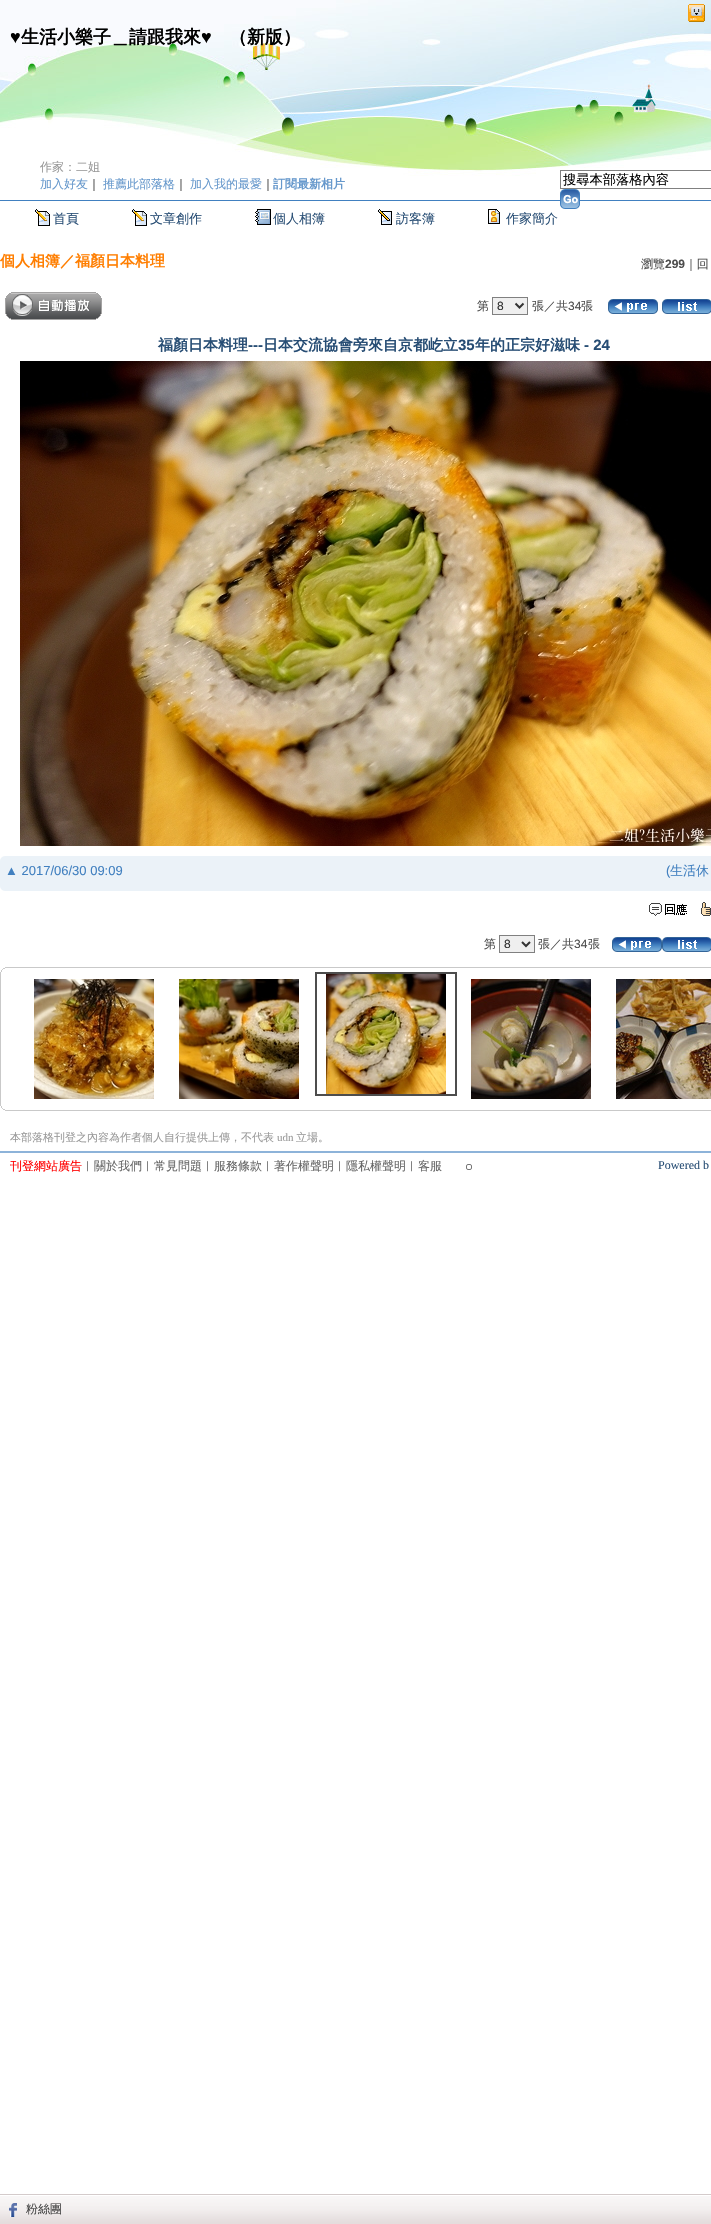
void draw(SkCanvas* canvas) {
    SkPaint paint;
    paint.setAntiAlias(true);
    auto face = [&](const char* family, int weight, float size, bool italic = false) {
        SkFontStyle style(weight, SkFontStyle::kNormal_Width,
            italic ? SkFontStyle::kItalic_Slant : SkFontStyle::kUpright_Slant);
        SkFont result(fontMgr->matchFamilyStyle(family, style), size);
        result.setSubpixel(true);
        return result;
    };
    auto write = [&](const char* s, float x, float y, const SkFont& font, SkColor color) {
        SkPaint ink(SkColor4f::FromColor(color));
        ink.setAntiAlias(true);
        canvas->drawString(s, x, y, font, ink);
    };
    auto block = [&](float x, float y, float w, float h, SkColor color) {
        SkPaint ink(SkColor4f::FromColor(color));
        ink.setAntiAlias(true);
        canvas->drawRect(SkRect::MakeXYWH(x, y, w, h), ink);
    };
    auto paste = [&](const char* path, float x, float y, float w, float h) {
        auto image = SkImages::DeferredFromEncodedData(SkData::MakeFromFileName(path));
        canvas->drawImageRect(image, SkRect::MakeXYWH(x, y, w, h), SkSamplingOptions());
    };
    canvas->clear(SK_ColorWHITE);
    paste("pic2.png", 0, 0, 711, 176);
    paste("pic1.png", 688, 4, 17, 18);
    auto kFont1 = face("Liberation Serif", 700, 18);
    write("♥", 10, 43, kFont1, SK_ColorBLACK);
    auto kFont2 = face("WenQuanYi Zen Hei", 700, 18);
    write("生活小樂子＿請跟我來", 21, 43, kFont2, SK_ColorBLACK);
    write("♥", 201, 43, kFont1, SK_ColorBLACK);
    write("（新版）", 229, 43, kFont2, SK_ColorBLACK);
    auto kFont3 = face("WenQuanYi Zen Hei", 500, 12);
    write("作家：二姐", 40, 171, kFont3, SkColorSetRGB(153, 153, 153));
    write("加入好友", 40, 188, kFont3, SkColorSetRGB(102, 152, 204));
    write("｜", 88, 188, kFont3, SkColorSetRGB(51, 51, 51));
    write("推薦此部落格", 103, 188, kFont3, SkColorSetRGB(102, 152, 204));
    write("｜", 175, 188, kFont3, SkColorSetRGB(51, 51, 51));
    write("加入我的最愛", 190, 188, kFont3, SkColorSetRGB(102, 152, 204));
    write("｜", 262, 188, kFont3, SkColorSetRGB(51, 51, 51));
    auto kFont4 = face("WenQuanYi Zen Hei", 700, 12);
    write("訂閱最新相片", 273, 188, kFont4, SkColorSetRGB(102, 152, 204));
    paint.setStyle(SkPaint::kStroke_Style);
    paint.setStrokeWidth(1);
    paint.setColor(SkColorSetRGB(128, 128, 128));
    canvas->drawRect(SkRect::MakeXYWH(560.5f, 170.5f, 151, 18), paint);
    auto kFont5 = face("WenQuanYi Zen Hei", 500, 13.25f);
    write("搜尋本部落格內容", 563, 184, kFont5, SK_ColorBLACK);
    block(0, 200, 711, 1, SkColorSetRGB(65, 128, 192));
    paste("pic3.png", 560, 189, 20, 20);
    paste("pic4.png", 35, 209, 15, 17);
    auto kFont6 = face("WenQuanYi Zen Hei", 500, 13);
    write("首頁", 53, 223, kFont6, SkColorSetRGB(39, 77, 116));
    paste("pic4.png", 132, 209, 15, 17);
    write("文章創作", 150, 223, kFont6, SkColorSetRGB(39, 77, 116));
    paste("pic5.png", 255, 209, 16, 16);
    write("個人相簿", 273, 223, kFont6, SkColorSetRGB(39, 77, 116));
    paste("pic6.png", 378, 209, 14, 16);
    write("訪客簿", 396, 223, kFont6, SkColorSetRGB(39, 77, 116));
    paste("pic7.png", 488, 209, 12, 15);
    write("作家簡介", 506, 223, kFont6, SkColorSetRGB(39, 77, 116));
    auto kFont7 = face("WenQuanYi Zen Hei", 700, 15);
    write("個人相簿／福顏日本料理", 0, 266, kFont7, SkColorSetRGB(255, 126, 0));
    write("瀏覽", 641, 268, kFont3, SkColorSetRGB(77, 77, 77));
    auto kFont8 = face("Liberation Sans", 700, 12);
    write("299", 665, 268, kFont8, SkColorSetRGB(77, 77, 77));
    write("｜回", 685, 268, kFont3, SkColorSetRGB(77, 77, 77));
    paste("pic8.png", 5, 292, 97, 28);
    write("第", 477, 310, kFont3, SkColorSetRGB(77, 77, 77));
    paint.setStyle(SkPaint::kFill_Style);
    paint.setColor(SkColorSetRGB(239, 239, 239));
    canvas->drawRect(SkRect::MakeXYWH(492.5f, 297.5f, 35, 17), paint);
    paint.setStyle(SkPaint::kStroke_Style);
    paint.setColor(SkColorSetRGB(128, 128, 128));
    canvas->drawRect(SkRect::MakeXYWH(492.5f, 297.5f, 35, 17), paint);
    paint.setStrokeWidth(2);
    paint.setColor(SkColorSetRGB(51, 51, 51));
    canvas->drawPath(SkPathBuilder().moveTo(515.5f, 303.5f).lineTo(519.5f, 307.5f).lineTo(523.5f, 303.5f).detach(), paint);
    auto kFont9 = face("Liberation Sans", 400, 12);
    write("8", 497, 310, kFont9, SkColorSetRGB(51, 51, 51));
    write("張／共", 532, 310, kFont3, SkColorSetRGB(77, 77, 77));
    write("34", 568, 310, kFont9, SkColorSetRGB(77, 77, 77));
    write("張", 581, 310, kFont3, SkColorSetRGB(77, 77, 77));
    paste("pic9.png", 608, 299, 50, 15);
    paste("pic10.png", 662, 299, 49, 15);
    write("福顏日本料理", 158, 350, kFont7, SkColorSetRGB(39, 77, 116));
    auto kFont10 = face("Liberation Sans", 700, 15);
    write("---", 248, 350, kFont10, SkColorSetRGB(39, 77, 116));
    write("日本交流協會旁來自京都屹立", 263, 350, kFont7, SkColorSetRGB(39, 77, 116));
    write("35", 458, 350, kFont10, SkColorSetRGB(39, 77, 116));
    write("年的正宗好滋味", 475, 350, kFont7, SkColorSetRGB(39, 77, 116));
    write("- 24", 584, 350, kFont10, SkColorSetRGB(39, 77, 116));
    paste("pic11.png", 20, 361, 691, 485);
    paste("pic12.png", 0, 856, 5, 5);
    block(5, 856, 706, 5, SkColorSetRGB(235, 242, 248));
    block(0, 861, 711, 25, SkColorSetRGB(235, 242, 248));
    auto kFont11 = face("Liberation Sans", 400, 13);
    write("▲ 2017/06/30 09:09", 5, 875, kFont11, SkColorSetRGB(65, 128, 192));
    write("(", 666, 875, kFont11, SkColorSetRGB(65, 128, 192));
    write("生活休", 670, 875, kFont6, SkColorSetRGB(65, 128, 192));
    paste("pic13.png", 0, 886, 5, 5);
    block(5, 886, 706, 5, SkColorSetRGB(235, 242, 248));
    paste("pic14.png", 649, 903, 38, 13);
    paste("pic15.png", 701, 902, 10, 14);
    write("第", 484, 948, kFont3, SkColorSetRGB(77, 77, 77));
    paint.setStyle(SkPaint::kFill_Style);
    paint.setColor(SkColorSetRGB(239, 239, 239));
    canvas->drawRect(SkRect::MakeXYWH(499.5f, 935.5f, 35, 17), paint);
    paint.setStyle(SkPaint::kStroke_Style);
    paint.setStrokeWidth(1);
    paint.setColor(SkColorSetRGB(128, 128, 128));
    canvas->drawRect(SkRect::MakeXYWH(499.5f, 935.5f, 35, 17), paint);
    paint.setStrokeWidth(2);
    paint.setColor(SkColorSetRGB(51, 51, 51));
    canvas->drawPath(SkPathBuilder().moveTo(522, 942).lineTo(526, 946).lineTo(530, 942).detach(), paint);
    write("8", 504, 948, kFont9, SkColorSetRGB(51, 51, 51));
    write("張／共", 538, 948, kFont3, SkColorSetRGB(77, 77, 77));
    write("34", 574, 948, kFont9, SkColorSetRGB(77, 77, 77));
    write("張", 588, 948, kFont3, SkColorSetRGB(77, 77, 77));
    paste("pic9.png", 612, 937, 50, 15);
    paste("pic10.png", 662, 937, 49, 15);
    paste("pic16.png", 0, 967, 711, 7);
    block(0, 974, 1, 130, SkColorSetRGB(201, 201, 201));
    paste("pic17.png", 34, 979, 120, 120);
    paste("pic18.png", 179, 979, 120, 120);
    paint.setColor(SkColorSetRGB(77, 77, 77));
    canvas->drawRect(SkRect::MakeXYWH(316, 973, 140, 122), paint);
    paste("pic19.png", 326, 974, 120, 120);
    paste("pic20.png", 471, 979, 120, 120);
    paste("pic21.png", 616, 979, 95, 120);
    paste("pic22.png", 0, 1104, 711, 7);
    block(0, 1151, 711, 2, SkColorSetRGB(141, 179, 217));
    auto kFont12 = face("WenQuanYi Zen Hei", 500, 11);
    write("本部落格刊登之內容為作者個人自行提供上傳，不代表", 10, 1141, kFont12, SkColorSetRGB(153, 153, 153));
    auto kFont13 = face("Liberation Serif", 400, 11);
    write("udn", 277, 1141, kFont13, SkColorSetRGB(153, 153, 153));
    write("立場。", 296, 1141, kFont12, SkColorSetRGB(153, 153, 153));
    write("刊登網站廣告", 10, 1170, kFont3, SkColorSetRGB(255, 0, 0));
    write("︱", 82, 1170, kFont3, SkColorSetRGB(51, 51, 51));
    write("關於我們", 94, 1170, kFont3, SkColorSetRGB(102, 102, 102));
    write("︱", 142, 1170, kFont3, SkColorSetRGB(51, 51, 51));
    write("常見問題", 154, 1170, kFont3, SkColorSetRGB(102, 102, 102));
    write("︱", 202, 1170, kFont3, SkColorSetRGB(51, 51, 51));
    write("服務條款", 214, 1170, kFont3, SkColorSetRGB(102, 102, 102));
    write("︱", 262, 1170, kFont3, SkColorSetRGB(51, 51, 51));
    write("著作權聲明", 274, 1170, kFont3, SkColorSetRGB(102, 102, 102));
    write("︱", 334, 1170, kFont3, SkColorSetRGB(51, 51, 51));
    write("隱私權聲明", 346, 1170, kFont3, SkColorSetRGB(102, 102, 102));
    write("︱", 406, 1170, kFont3, SkColorSetRGB(51, 51, 51));
    write("客服", 418, 1170, kFont3, SkColorSetRGB(102, 102, 102));
    paint.setStrokeWidth(1);
    paint.setColor(SkColorSetRGB(118, 118, 118));
    canvas->drawRoundRect(SkRect::MakeXYWH(466.5f, 1164.5f, 5, 5), 1.5f, 1.5f, paint);
    auto kFont14 = face("Liberation Serif", 400, 12);
    write("Powered b", 658, 1169, kFont14, SkColorSetRGB(39, 77, 116));
    paste("pic23.png", 0, 2194, 711, 30);
    paste("pic24.png", 9, 2203, 8, 14);
    write("粉絲團", 26, 2213, kFont3, SkColorSetRGB(68, 68, 68));
}
